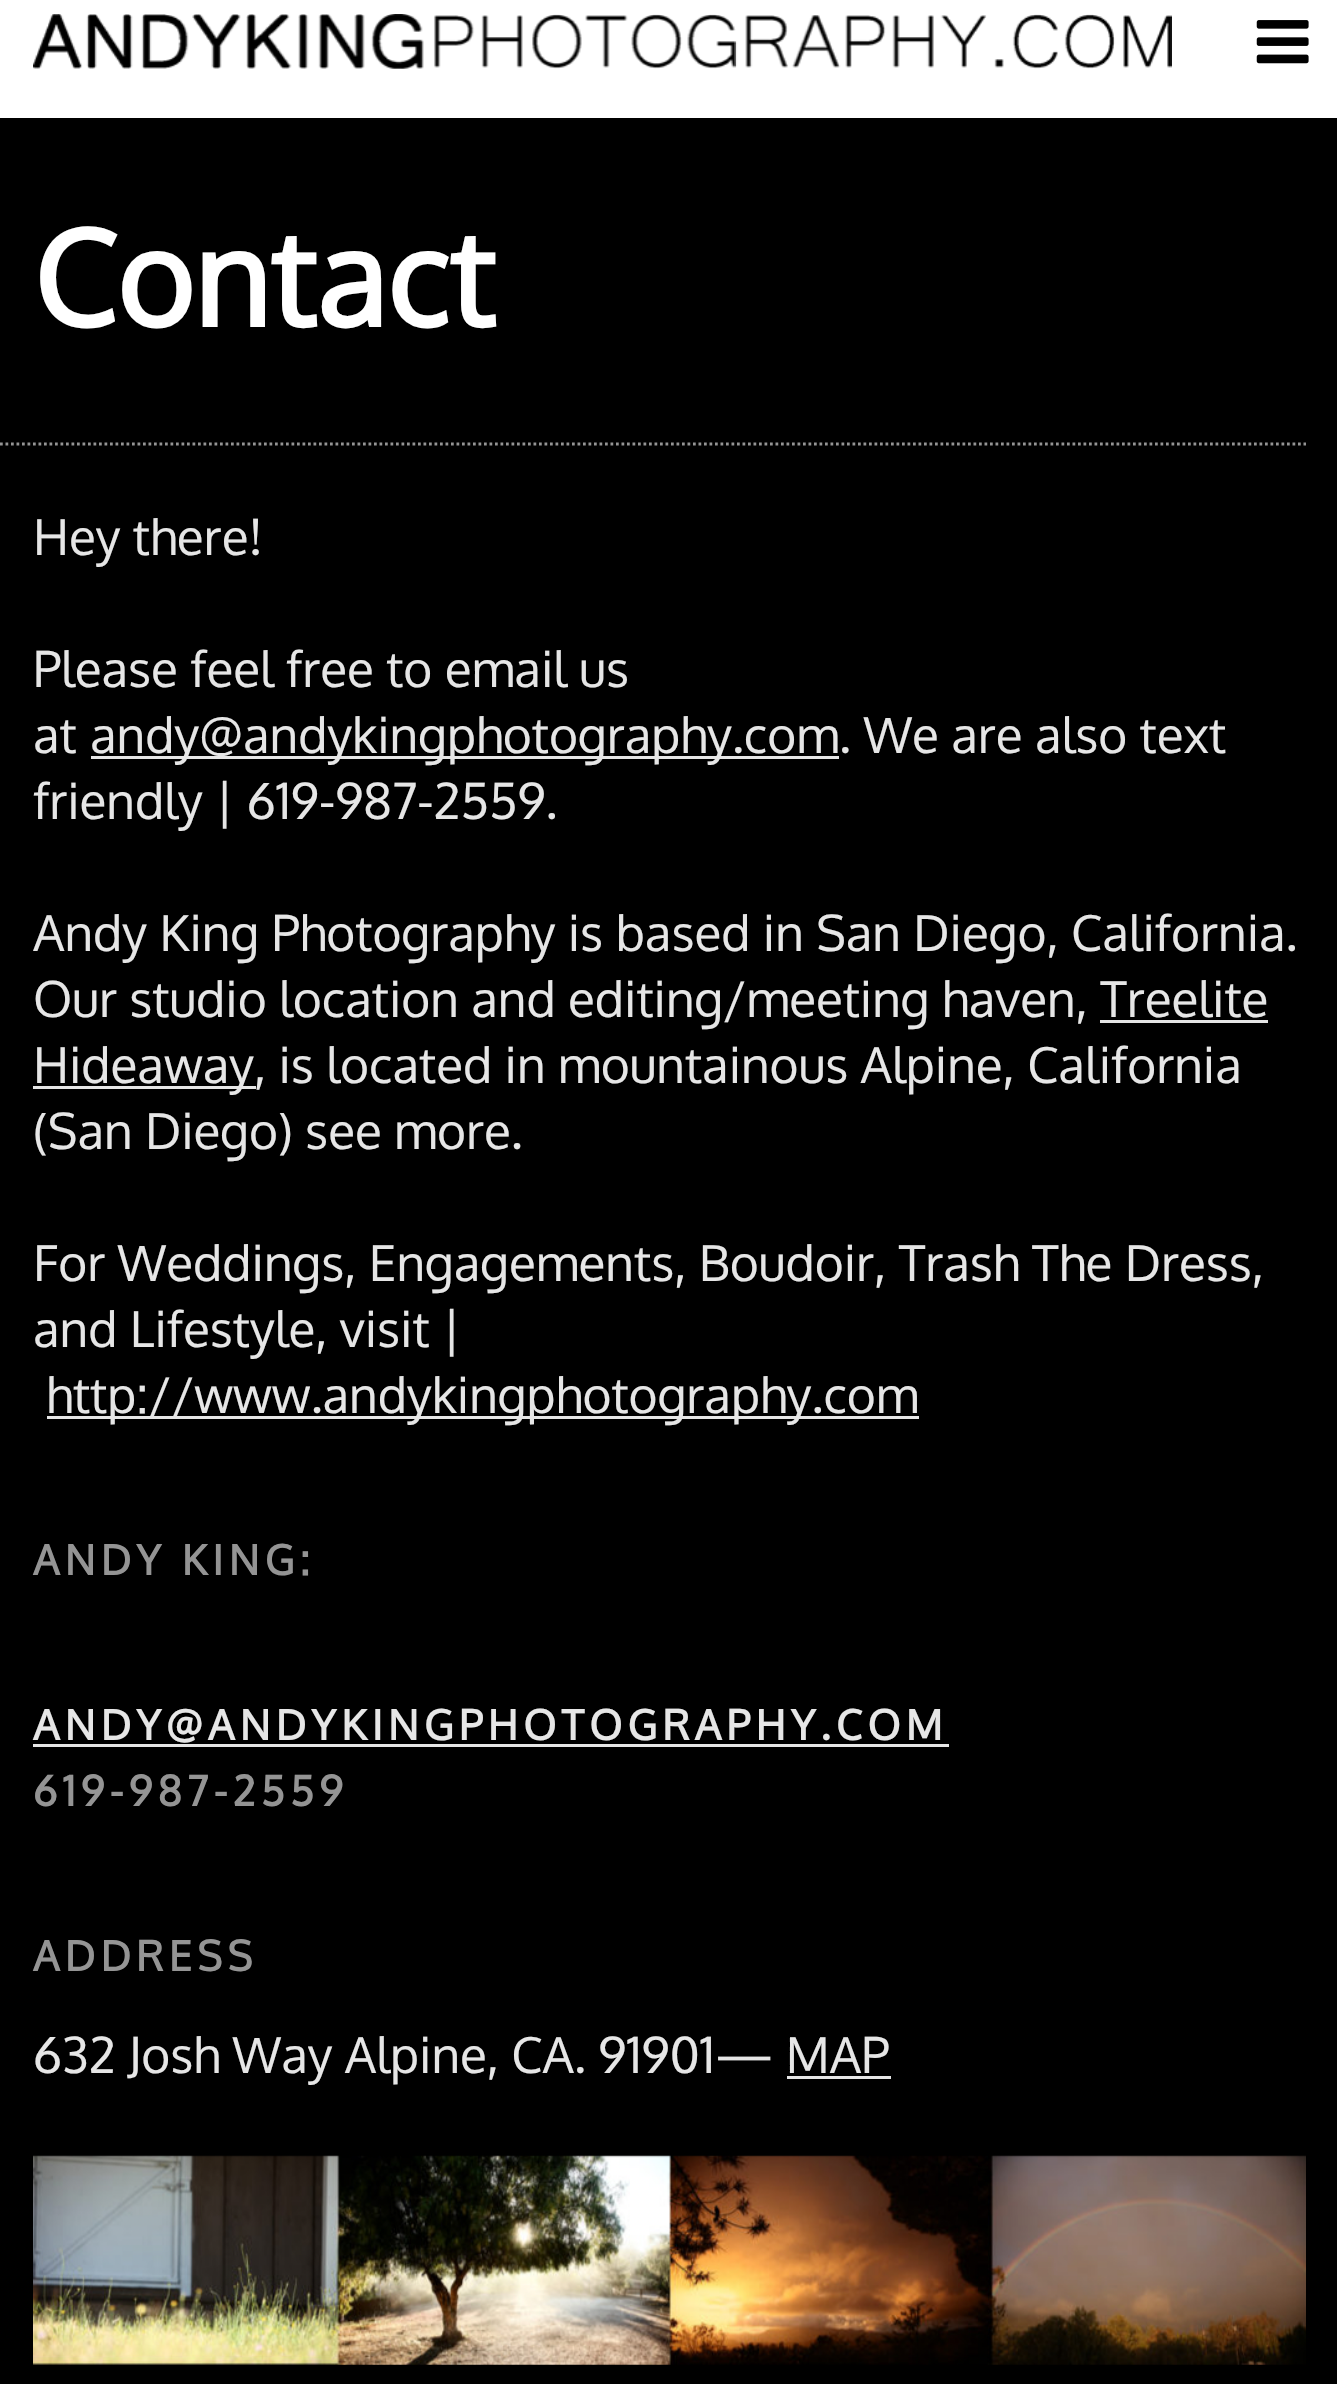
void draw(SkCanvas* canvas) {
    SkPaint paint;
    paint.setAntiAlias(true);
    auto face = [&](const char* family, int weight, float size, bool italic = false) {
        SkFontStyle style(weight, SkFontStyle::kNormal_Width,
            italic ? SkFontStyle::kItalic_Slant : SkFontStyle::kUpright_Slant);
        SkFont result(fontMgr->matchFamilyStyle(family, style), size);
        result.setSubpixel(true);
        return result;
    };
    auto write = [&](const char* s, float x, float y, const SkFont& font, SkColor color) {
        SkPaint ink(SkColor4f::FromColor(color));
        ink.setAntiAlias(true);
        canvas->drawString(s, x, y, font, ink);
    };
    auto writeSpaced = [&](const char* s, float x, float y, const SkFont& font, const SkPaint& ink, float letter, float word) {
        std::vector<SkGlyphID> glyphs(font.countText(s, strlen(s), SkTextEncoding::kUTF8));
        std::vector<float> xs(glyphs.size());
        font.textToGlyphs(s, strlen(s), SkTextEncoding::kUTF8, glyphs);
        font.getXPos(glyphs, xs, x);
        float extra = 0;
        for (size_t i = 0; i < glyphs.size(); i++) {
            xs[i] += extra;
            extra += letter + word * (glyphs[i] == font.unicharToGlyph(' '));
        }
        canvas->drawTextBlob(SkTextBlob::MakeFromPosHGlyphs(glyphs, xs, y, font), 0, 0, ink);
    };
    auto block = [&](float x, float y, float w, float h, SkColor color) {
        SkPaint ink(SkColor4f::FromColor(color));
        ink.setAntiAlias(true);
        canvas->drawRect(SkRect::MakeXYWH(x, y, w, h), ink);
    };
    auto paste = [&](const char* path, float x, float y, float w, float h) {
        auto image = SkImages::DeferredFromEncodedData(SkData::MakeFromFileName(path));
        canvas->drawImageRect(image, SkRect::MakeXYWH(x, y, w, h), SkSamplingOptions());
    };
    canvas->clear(SK_ColorBLACK);
    block(0, 0, 1337, 118, SK_ColorWHITE);
    paste("pic1.png", 33, 14, 1139, 55);
    paste("pic2.png", 1256, 20, 53, 44);
    auto kFont1 = face("Oxygen", 700, 132);
    write("Contact", 33, 327, kFont1, SK_ColorWHITE);
    paint.setStyle(SkPaint::kStroke_Style);
    paint.setStrokeWidth(2.8f);
    paint.setColor(SkColorSetRGB(148, 148, 148));
    paint.setPathEffect(SkDashPathEffect::Make({{2.75f, 2.75f}}, 0));
    canvas->drawPath(SkPathBuilder().moveTo(-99, 444).lineTo(1306, 444).detach(), paint);
    paint.setPathEffect(nullptr);
    auto kFont2 = face("Oxygen", 400, 49.5f);
    write("Hey there!", 33, 555, kFont2, SkColorSetRGB(230, 230, 230));
    write("Please feel free to email us", 33, 687, kFont2, SkColorSetRGB(230, 230, 230));
    write("at", 33, 753, kFont2, SkColorSetRGB(230, 230, 230));
    block(91, 756, 748, 3, SkColorSetRGB(230, 230, 230));
    write("andy@andykingphotography.com. We are also text", 90, 753, kFont2, SkColorSetRGB(230, 230, 230));
    write("friendly | 619-987-2559.", 33, 819, kFont2, SkColorSetRGB(230, 230, 230));
    write("Andy King Photography is based in San Diego, California.", 33, 951, kFont2, SkColorSetRGB(230, 230, 230));
    write("Our studio location and editing/meeting haven, Treelite", 33, 1017, kFont2, SkColorSetRGB(230, 230, 230));
    block(33, 1086, 223, 3, SkColorSetRGB(230, 230, 230));
    write("Hideaway, is located in mountainous Alpine, California", 33, 1083, kFont2, SkColorSetRGB(230, 230, 230));
    block(1100, 1020, 168, 3, SkColorSetRGB(230, 230, 230));
    write("(San Diego) see more.", 33, 1149, kFont2, SkColorSetRGB(230, 230, 230));
    write("For Weddings, Engagements, Boudoir, Trash The Dress,", 33, 1281, kFont2, SkColorSetRGB(230, 230, 230));
    write("and Lifestyle, visit |", 33, 1347, kFont2, SkColorSetRGB(230, 230, 230));
    block(47, 1416, 872, 3, SkColorSetRGB(230, 230, 230));
    write("http://www.andykingphotography.com", 46, 1413, kFont2, SkColorSetRGB(230, 230, 230));
    auto kFont3 = face("Oxygen", 700, 41.25f);
    paint.setStyle(SkPaint::kFill_Style);
    writeSpaced("ANDY KING:", 33, 1575, kFont3, paint, 5.5f, 0);
    paint.setColor(SkColorSetRGB(230, 230, 230));
    writeSpaced("ANDY@ANDYKINGPHOTOGRAPHY.COM", 33, 1740, kFont3, paint, 5.5f, 0);
    block(33, 1744, 916, 3, SkColorSetRGB(230, 230, 230));
    paint.setColor(SkColorSetRGB(148, 148, 148));
    writeSpaced("619-987-2559", 33, 1806, kFont3, paint, 5.5f, 0);
    writeSpaced("ADDRESS", 33, 1971, kFont3, paint, 5.5f, 0);
    write("632 Josh Way Alpine, CA. 91901— MAP", 33, 2073, kFont2, SkColorSetRGB(230, 230, 230));
    block(787, 2076, 104, 3, SkColorSetRGB(230, 230, 230));
    paste("pic3.png", 33, 2155, 1273, 210);
}
